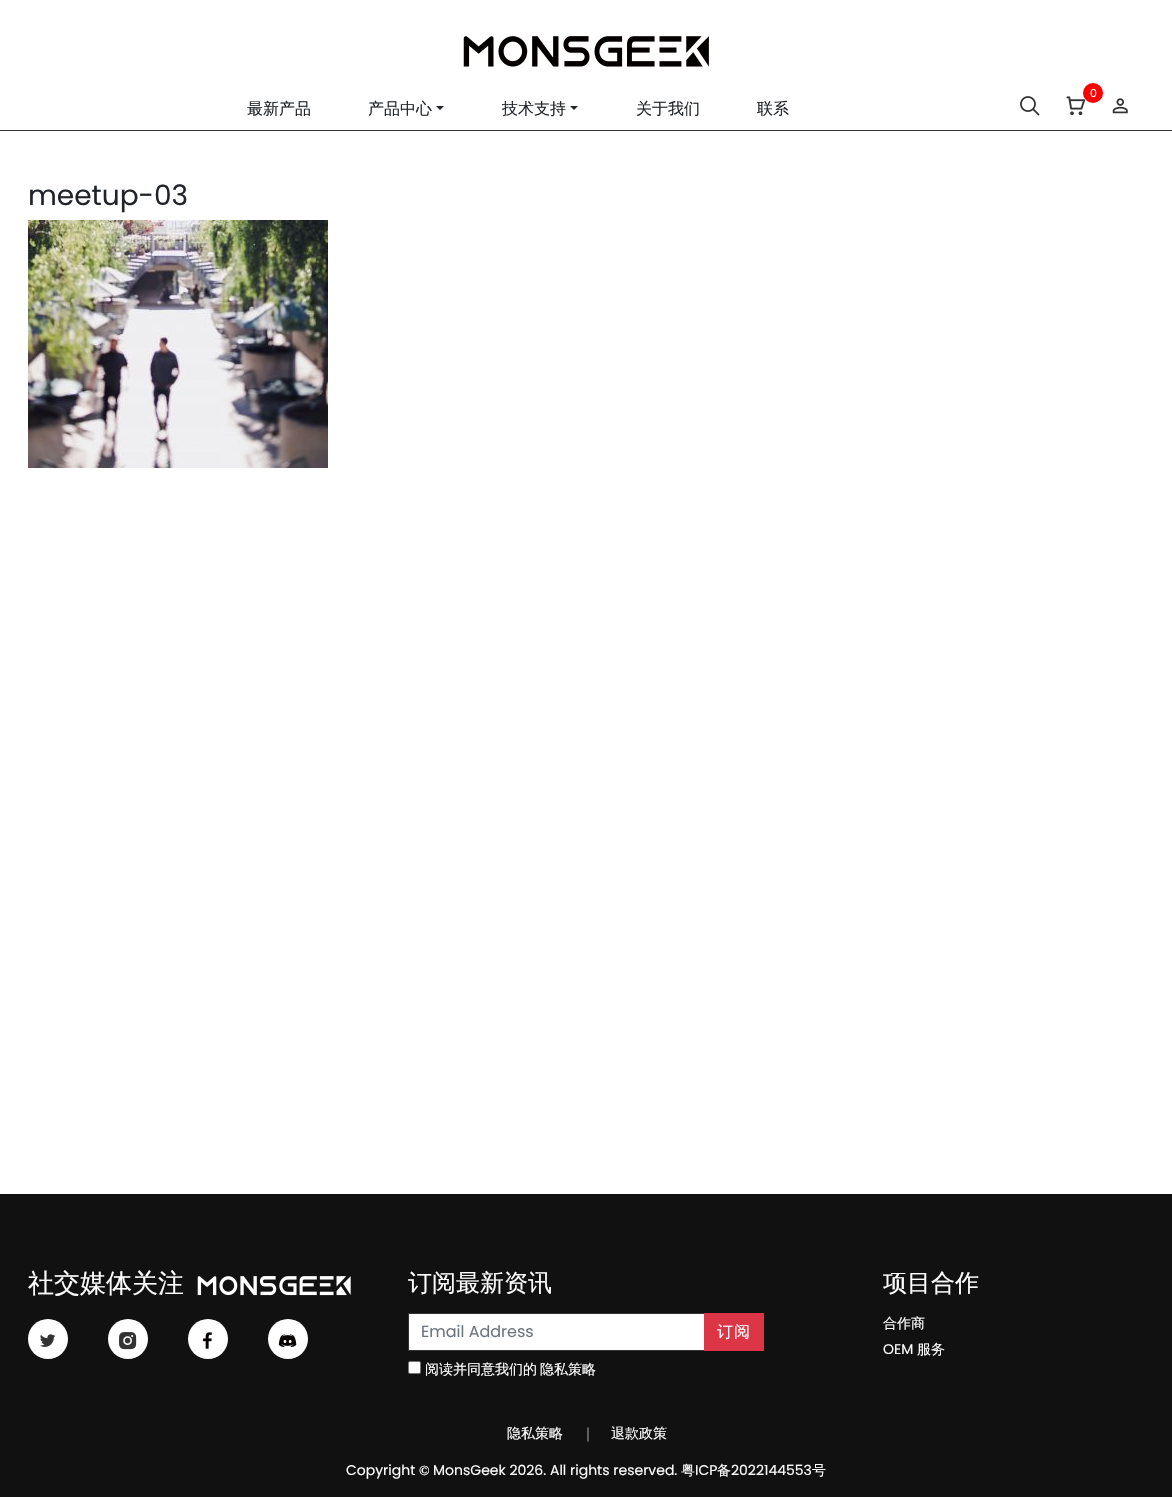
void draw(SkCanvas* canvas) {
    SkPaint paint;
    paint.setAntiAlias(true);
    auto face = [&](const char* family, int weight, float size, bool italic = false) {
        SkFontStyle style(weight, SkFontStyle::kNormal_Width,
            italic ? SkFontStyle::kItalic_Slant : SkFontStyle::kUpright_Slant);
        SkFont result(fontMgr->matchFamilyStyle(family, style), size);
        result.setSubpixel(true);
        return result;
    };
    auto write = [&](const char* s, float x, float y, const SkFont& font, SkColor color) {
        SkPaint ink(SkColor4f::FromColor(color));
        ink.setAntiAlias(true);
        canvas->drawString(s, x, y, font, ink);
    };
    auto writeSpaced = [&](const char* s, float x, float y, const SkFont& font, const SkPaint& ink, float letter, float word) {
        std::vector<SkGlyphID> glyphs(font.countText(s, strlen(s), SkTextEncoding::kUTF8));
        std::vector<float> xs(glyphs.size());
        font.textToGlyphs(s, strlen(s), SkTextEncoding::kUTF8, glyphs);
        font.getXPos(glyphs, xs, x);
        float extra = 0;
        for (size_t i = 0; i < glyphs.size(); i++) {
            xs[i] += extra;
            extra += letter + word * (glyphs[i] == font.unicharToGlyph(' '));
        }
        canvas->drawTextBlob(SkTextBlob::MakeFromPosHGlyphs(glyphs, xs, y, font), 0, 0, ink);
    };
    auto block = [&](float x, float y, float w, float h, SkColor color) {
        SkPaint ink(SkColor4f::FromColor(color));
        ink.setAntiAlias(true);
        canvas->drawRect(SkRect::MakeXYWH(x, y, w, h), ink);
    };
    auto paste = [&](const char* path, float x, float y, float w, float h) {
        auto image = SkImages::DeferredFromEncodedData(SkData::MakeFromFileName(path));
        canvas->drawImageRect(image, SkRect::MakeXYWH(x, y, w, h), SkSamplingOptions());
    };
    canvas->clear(SK_ColorWHITE);
    block(0, 130, 1172, 1, SkColorSetRGB(51, 51, 51));
    paste("pic1.png", 463, 36, 246, 31);
    paste("pic2.png", 1066, 96, 20, 20);
    paint.setColor(SkColorSetRGB(255, 0, 0));
    canvas->drawCircle(1093, 93, 10, paint);
    auto kFont1 = face("Poppins", 400, 11);
    write("0", 1090, 97, kFont1, SK_ColorWHITE);
    auto kFont2 = face("WenQuanYi Zen Hei", 500, 16);
    write("最新产品", 247, 114, kFont2, SkColorSetRGB(33, 37, 41));
    write("产品中心", 368, 114, kFont2, SkColorSetRGB(33, 37, 41));
    paint.setColor(SkColorSetRGB(33, 37, 41));
    canvas->drawPath(SkPathBuilder().moveTo(436, 106).lineTo(444, 106).lineTo(440, 110).close().detach(), paint);
    write("技术支持", 502, 114, kFont2, SkColorSetRGB(33, 37, 41));
    canvas->drawPath(SkPathBuilder().moveTo(570, 106).lineTo(578, 106).lineTo(574, 110).close().detach(), paint);
    write("关于我们", 636, 114, kFont2, SkColorSetRGB(33, 37, 41));
    write("联系", 757, 114, kFont2, SkColorSetRGB(33, 37, 41));
    paste("pic3.png", 1020, 96, 20, 20);
    paste("pic4.png", 1112, 98, 16, 16);
    auto kFont3 = face("Poppins", 400, 28);
    write("meetup-03", 28, 205, kFont3, SkColorSetRGB(33, 37, 41));
    paste("pic5.png", 28, 220, 300, 248);
    block(0, 1194, 1172, 303, SkColorSetRGB(17, 17, 17));
    auto kFont4 = face("WenQuanYi Zen Hei", 500, 26);
    write("社交媒体关注", 28, 1292, kFont4, SK_ColorWHITE);
    paste("pic6.png", 197, 1276, 154, 20);
    paint.setColor(SK_ColorWHITE);
    canvas->drawCircle(48, 1339, 20, paint);
    paste("pic7.png", 40, 1334, 16, 13);
    canvas->drawCircle(128, 1339, 20, paint);
    paste("pic8.png", 119, 1332, 18, 18);
    canvas->drawCircle(208, 1339, 20, paint);
    paste("pic9.png", 203, 1332, 9, 17);
    canvas->drawCircle(288, 1339, 20, paint);
    paste("pic10.png", 278, 1334, 19, 14);
    auto kFont5 = face("WenQuanYi Zen Hei", 500, 24);
    write("订阅最新资讯", 408, 1291, kFont5, SK_ColorWHITE);
    block(409, 1314, 295, 36, SK_ColorWHITE);
    paint.setStyle(SkPaint::kStroke_Style);
    paint.setStrokeWidth(1);
    paint.setColor(SkColorSetRGB(51, 51, 51));
    canvas->drawRect(SkRect::MakeXYWH(408.5f, 1313.5f, 355, 37), paint);
    auto kFont6 = face("Poppins", 400, 16);
    write("Email Address", 421, 1337, kFont6, SkColorSetRGB(108, 117, 125));
    block(704, 1313, 60, 38, SkColorSetRGB(220, 53, 69));
    paint.setStyle(SkPaint::kFill_Style);
    paint.setColor(SK_ColorWHITE);
    writeSpaced("订阅", 717, 1337, kFont2, paint, 1, 0);
    canvas->drawRoundRect(SkRect::MakeXYWH(408.5f, 1361.5f, 12, 12), 1.5f, 1.5f, paint);
    paint.setStyle(SkPaint::kStroke_Style);
    paint.setColor(SkColorSetRGB(118, 118, 118));
    canvas->drawRoundRect(SkRect::MakeXYWH(408.5f, 1361.5f, 12, 12), 1.5f, 1.5f, paint);
    auto kFont7 = face("WenQuanYi Zen Hei", 500, 14);
    write("阅读并同意我们的", 425, 1374, kFont7, SK_ColorWHITE);
    write("隐私策略", 540, 1374, kFont7, SK_ColorWHITE);
    write("项目合作", 883, 1291, kFont5, SK_ColorWHITE);
    write("合作商", 883, 1328, kFont7, SK_ColorWHITE);
    auto kFont8 = face("Poppins", 400, 14);
    write("OEM", 883, 1354, kFont8, SK_ColorWHITE);
    write("服务", 917, 1354, kFont7, SK_ColorWHITE);
    write("隐私策略", 507, 1438, kFont7, SK_ColorWHITE);
    write("｜", 581, 1438, kFont7, SkColorSetRGB(167, 167, 167));
    write("退款政策", 611, 1438, kFont7, SK_ColorWHITE);
    write("Copyright", 346, 1475, kFont8, SK_ColorWHITE);
    auto kFont9 = face("Liberation Serif", 700, 14);
    write("©", 419, 1475, kFont9, SK_ColorWHITE);
    write("MonsGeek 2026. All rights reserved.", 433, 1475, kFont8, SK_ColorWHITE);
    write("粤", 681, 1475, kFont7, SK_ColorWHITE);
    write("ICP", 695, 1475, kFont8, SK_ColorWHITE);
    write("备", 717, 1475, kFont7, SK_ColorWHITE);
    write("2022144553", 731, 1475, kFont8, SK_ColorWHITE);
    write("号", 812, 1475, kFont7, SK_ColorWHITE);
}
